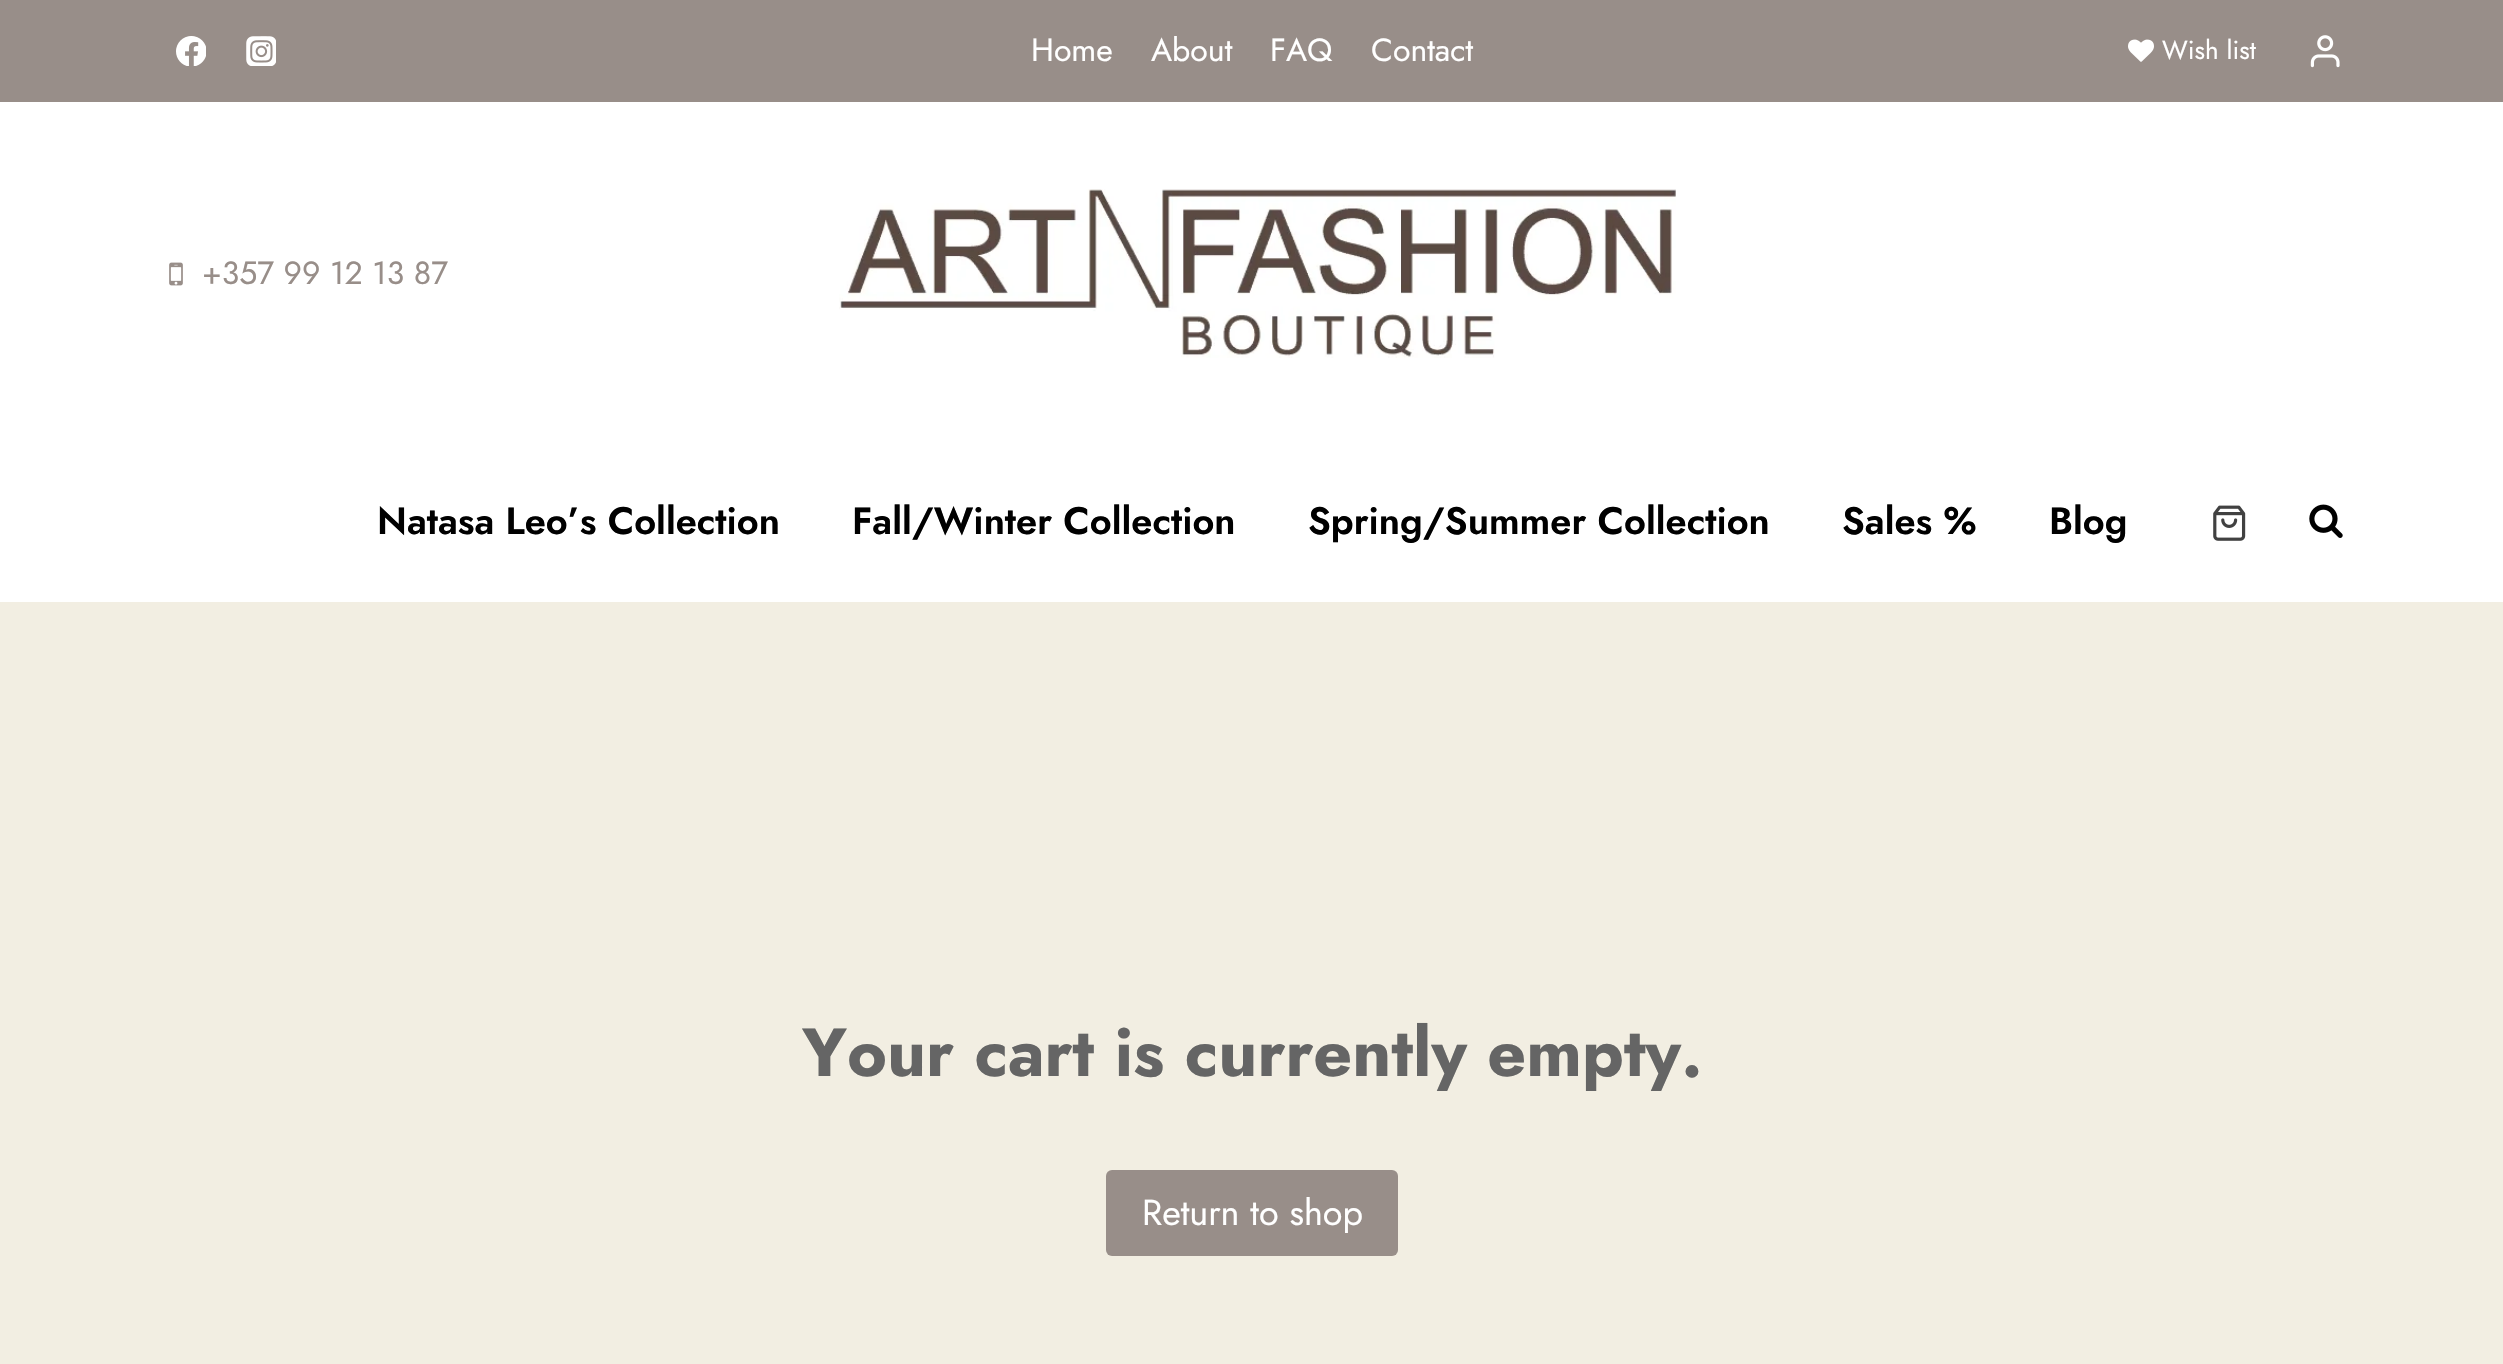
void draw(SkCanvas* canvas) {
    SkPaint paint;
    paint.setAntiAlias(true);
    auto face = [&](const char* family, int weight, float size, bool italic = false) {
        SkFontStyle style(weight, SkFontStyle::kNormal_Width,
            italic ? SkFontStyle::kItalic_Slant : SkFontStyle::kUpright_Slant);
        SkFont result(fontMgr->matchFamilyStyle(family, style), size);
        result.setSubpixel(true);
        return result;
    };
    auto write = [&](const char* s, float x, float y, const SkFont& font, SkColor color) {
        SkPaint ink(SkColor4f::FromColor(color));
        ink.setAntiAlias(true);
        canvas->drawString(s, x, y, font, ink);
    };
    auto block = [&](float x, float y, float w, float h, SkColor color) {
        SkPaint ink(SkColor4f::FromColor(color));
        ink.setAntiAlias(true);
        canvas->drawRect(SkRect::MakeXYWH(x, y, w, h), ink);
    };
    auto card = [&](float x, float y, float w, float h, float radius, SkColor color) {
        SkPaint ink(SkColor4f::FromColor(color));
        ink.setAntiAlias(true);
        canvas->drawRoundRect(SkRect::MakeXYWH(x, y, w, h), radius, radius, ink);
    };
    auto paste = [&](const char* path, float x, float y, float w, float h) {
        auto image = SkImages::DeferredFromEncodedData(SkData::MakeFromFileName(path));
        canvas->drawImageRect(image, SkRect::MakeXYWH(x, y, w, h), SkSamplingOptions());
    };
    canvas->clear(SkColorSetRGB(242, 238, 226));
    block(0, 102, 2503, 500, SK_ColorWHITE);
    block(0, 0, 2503, 102, SkColorSetRGB(152, 142, 137));
    paste("pic1.png", 176, 36, 30, 30);
    paste("pic2.png", 246, 36, 30, 30);
    auto kFont1 = face("Jost", 400, 32);
    write("Home", 1031, 61, kFont1, SK_ColorWHITE);
    write("About", 1151, 61, kFont1, SK_ColorWHITE);
    write("FAQ", 1270, 61, kFont1, SK_ColorWHITE);
    write("Contact", 1371, 61, kFont1, SK_ColorWHITE);
    paste("pic3.png", 2128, 39, 26, 23);
    auto kFont2 = face("Jost", 400, 26);
    write("Wish list", 2162, 59, kFont2, SK_ColorWHITE);
    paste("pic4.png", 2310, 35, 30, 33);
    paste("pic5.png", 169, 262, 14, 24);
    write("+357 99 12 13 87", 202, 284, kFont1, SkColorSetRGB(152, 142, 137));
    paste("pic6.png", 839, 189, 837, 169);
    auto kFont3 = face("Jost", 600, 38);
    write("Natasa Leo’s Collection", 377, 534, kFont3, SK_ColorBLACK);
    write("Fall/Winter Collection", 852, 534, kFont3, SK_ColorBLACK);
    write("Spring/Summer Collection", 1308, 534, kFont3, SK_ColorBLACK);
    write("Sales %", 1842, 534, kFont3, SK_ColorBLACK);
    write("Blog", 2049, 534, kFont3, SK_ColorBLACK);
    paste("pic7.png", 2213, 505, 33, 36);
    paste("pic8.png", 2309, 504, 34, 34);
    auto kFont4 = face("Jost", 700, 68);
    write("Your cart is currently empty.", 802, 1076, kFont4, SkColorSetRGB(101, 101, 101));
    card(1106, 1170, 292, 86, 6, SkColorSetRGB(152, 142, 137));
    auto kFont5 = face("Jost", 400, 36);
    write("Return to shop", 1142, 1225, kFont5, SK_ColorWHITE);
}
